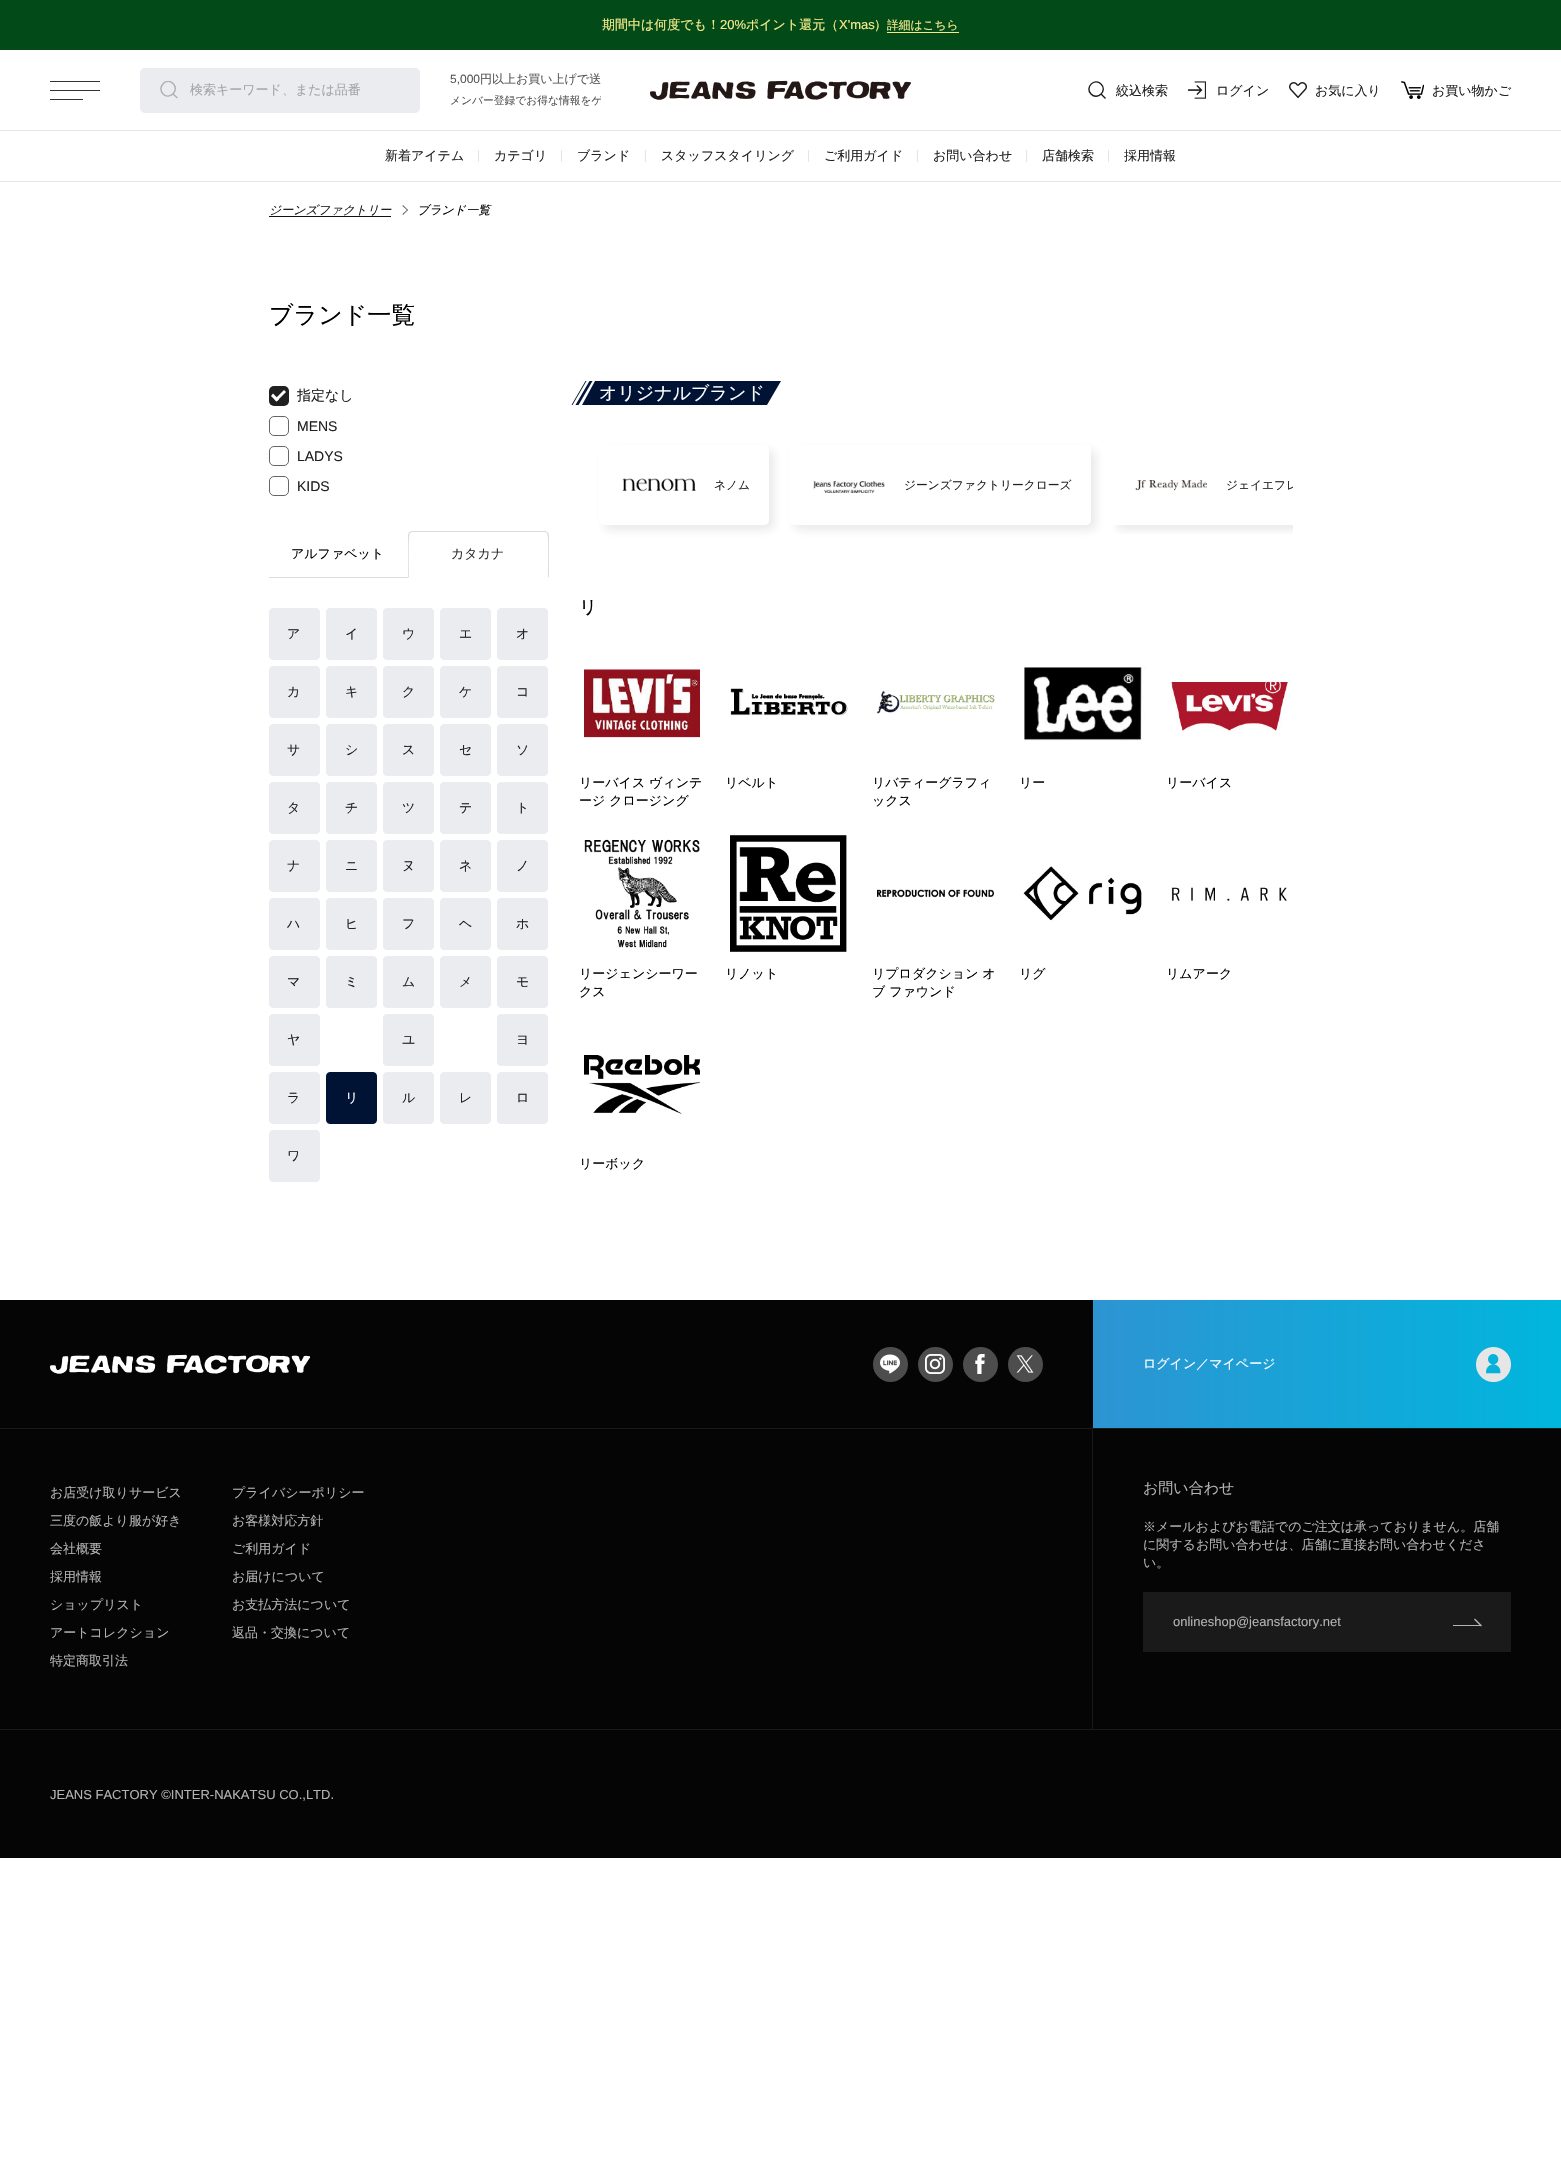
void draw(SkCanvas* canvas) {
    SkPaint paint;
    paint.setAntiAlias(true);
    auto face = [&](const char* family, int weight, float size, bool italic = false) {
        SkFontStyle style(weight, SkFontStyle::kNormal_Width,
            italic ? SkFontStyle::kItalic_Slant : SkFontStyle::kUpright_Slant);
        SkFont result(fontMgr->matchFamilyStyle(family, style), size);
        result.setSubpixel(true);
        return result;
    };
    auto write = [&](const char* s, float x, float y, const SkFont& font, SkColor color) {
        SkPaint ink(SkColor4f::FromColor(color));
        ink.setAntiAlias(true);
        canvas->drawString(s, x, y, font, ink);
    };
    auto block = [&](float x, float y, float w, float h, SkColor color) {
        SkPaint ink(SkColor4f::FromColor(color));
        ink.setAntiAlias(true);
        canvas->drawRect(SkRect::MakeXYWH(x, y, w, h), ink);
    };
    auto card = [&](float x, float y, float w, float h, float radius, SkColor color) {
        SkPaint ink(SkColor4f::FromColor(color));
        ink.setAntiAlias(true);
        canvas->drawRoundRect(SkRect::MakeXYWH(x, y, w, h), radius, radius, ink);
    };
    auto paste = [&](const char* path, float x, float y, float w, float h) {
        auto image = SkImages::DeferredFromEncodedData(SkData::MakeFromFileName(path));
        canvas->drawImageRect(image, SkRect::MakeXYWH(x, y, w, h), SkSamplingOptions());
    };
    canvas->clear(SK_ColorWHITE);
    block(0, 0, 1561, 50, SkColorSetRGB(2, 75, 24));
    auto kFont1 = face("WenQuanYi Zen Hei", 500, 13);
    write("期間中は何度でも！", 602, 29, kFont1, SkColorSetRGB(247, 234, 139));
    auto kFont2 = face("Liberation Sans", 400, 13);
    write("20%", 720, 29, kFont2, SkColorSetRGB(247, 234, 139));
    write("ポイント還元（", 746, 29, kFont1, SkColorSetRGB(247, 234, 139));
    write("X'mas", 839, 29, kFont2, SkColorSetRGB(247, 234, 139));
    write("）", 874, 29, kFont1, SkColorSetRGB(247, 234, 139));
    block(887, 32, 72, 1, SkColorSetRGB(247, 234, 139));
    auto kFont3 = face("WenQuanYi Zen Hei", 500, 11.75f);
    write("詳細はこちら", 887, 29, kFont3, SkColorSetRGB(247, 234, 139));
    block(50, 81, 50, 1, SkColorSetRGB(51, 51, 51));
    block(50, 90, 50, 1, SkColorSetRGB(51, 51, 51));
    block(50, 99, 33, 1, SkColorSetRGB(51, 51, 51));
    card(140, 68, 280, 45, 5, SkColorSetRGB(235, 236, 240));
    canvas->save();
    canvas->clipRect(SkRect::MakeXYWH(160, 81, 18, 18));
    paint.setStyle(SkPaint::kStroke_Style);
    paint.setStrokeWidth(1.4f);
    paint.setStrokeCap(SkPaint::kRound_Cap);
    paint.setColor(SkColorSetRGB(174, 175, 178));
    canvas->drawPath(SkPathBuilder().moveTo(177.5f, 98).lineTo(173, 94).close().moveTo(173, 83.5f).cubicTo(180, 90.5f, 169.5f, 100.5f, 163, 94).cubicTo(156.5f, 87, 166.5f, 77, 173, 83.5f).close().detach(), paint);
    canvas->restore();
    write("検索キーワード、または品番", 190, 94, kFont1, SkColorSetRGB(165, 165, 168));
    auto kFont4 = face("Liberation Sans", 400, 12);
    write("5,000", 450, 83, kFont4, SkColorSetRGB(85, 85, 85));
    auto kFont5 = face("WenQuanYi Zen Hei", 500, 12);
    write("円以上お買い上げで送", 480, 83, kFont5, SkColorSetRGB(85, 85, 85));
    auto kFont6 = face("WenQuanYi Zen Hei", 500, 10.75f);
    write("メンバー登録でお得な情報をゲ", 450, 104, kFont6, SkColorSetRGB(85, 85, 85));
    block(601, 95, 3, 5, SK_ColorWHITE);
    paste("pic1.png", 650, 80, 261, 20);
    paint.setColor(SkColorSetRGB(27, 27, 27));
    canvas->drawPath(SkPathBuilder().moveTo(1105.5f, 98.5f).lineTo(1101, 94).close().moveTo(1101, 84).cubicTo(1108, 90.5f, 1097.5f, 101, 1091, 94).cubicTo(1084.5f, 87.5f, 1094.5f, 77.5f, 1101, 84).close().detach(), paint);
    write("絞込検索", 1116, 95, kFont1, SkColorSetRGB(32, 32, 32));
    paste("pic2.png", 1188, 81, 18, 18);
    write("ログイン", 1216, 95, kFont1, SkColorSetRGB(32, 32, 32));
    paste("pic3.png", 1289, 82, 18, 17);
    write("お気に入り", 1315, 95, kFont1, SkColorSetRGB(32, 32, 32));
    paste("pic4.png", 1401, 81, 23, 18);
    write("お買い物かご", 1432, 95, kFont1, SkColorSetRGB(32, 32, 32));
    block(0, 130, 1561, 1, SkColorSetRGB(229, 229, 229));
    block(0, 181, 1561, 1, SkColorSetRGB(229, 229, 229));
    write("新着アイテム", 385, 160, kFont1, SkColorSetRGB(32, 32, 32));
    block(478, 150, 1, 12, SkColorSetRGB(229, 229, 229));
    write("カテゴリ", 494, 160, kFont1, SkColorSetRGB(32, 32, 32));
    block(561, 150, 1, 12, SkColorSetRGB(229, 229, 229));
    write("ブランド", 577, 160, kFont1, SkColorSetRGB(32, 32, 32));
    block(645, 150, 1, 12, SkColorSetRGB(229, 229, 229));
    write("スタッフスタイリング", 661, 160, kFont1, SkColorSetRGB(32, 32, 32));
    block(808, 150, 1, 12, SkColorSetRGB(229, 229, 229));
    write("ご利用ガイド", 824, 160, kFont1, SkColorSetRGB(32, 32, 32));
    block(917, 150, 1, 12, SkColorSetRGB(229, 229, 229));
    write("お問い合わせ", 933, 160, kFont1, SkColorSetRGB(32, 32, 32));
    block(1026, 150, 1, 12, SkColorSetRGB(229, 229, 229));
    write("店舗検索", 1042, 160, kFont1, SkColorSetRGB(32, 32, 32));
    block(1108, 150, 1, 12, SkColorSetRGB(229, 229, 229));
    write("採用情報", 1124, 160, kFont1, SkColorSetRGB(32, 32, 32));
    auto kFont7 = face("WenQuanYi Zen Hei", 500, 12, true);
    write("ジーンズファクトリー", 269, 214, kFont7, SkColorSetRGB(32, 32, 32));
    block(269, 216, 122, 1, SkColorSetRGB(17, 17, 17));
    paint.setStyle(SkPaint::kFill_Style);
    paint.setColor(SkColorSetRGB(85, 85, 85));
    canvas->drawPath(SkPathBuilder().moveTo(403, 205).lineTo(408, 210).lineTo(407.5f, 210.5f).lineTo(402.5f, 206).close().detach(), paint);
    canvas->drawPath(SkPathBuilder().moveTo(407.5f, 209.5f).lineTo(408, 210).lineTo(403, 215).lineTo(402.5f, 214).close().detach(), paint);
    write("ブランド一覧", 417, 214, kFont7, SK_ColorBLACK);
    auto kFont8 = face("WenQuanYi Zen Hei", 500, 24);
    write("ブランド一覧", 269, 323, kFont8, SK_ColorBLACK);
    card(269, 386, 20, 20, 5, SkColorSetRGB(32, 32, 32));
    paint.setColor(SK_ColorWHITE);
    canvas->drawPath(SkPathBuilder().moveTo(274.5f, 399.5f).lineTo(284, 390).lineTo(286, 392).lineTo(276.5f, 401.5f).close().detach(), paint);
    canvas->drawPath(SkPathBuilder().moveTo(271, 396).lineTo(273, 393.5f).lineTo(279, 399.5f).lineTo(276.5f, 401.5f).close().detach(), paint);
    auto kFont9 = face("WenQuanYi Zen Hei", 500, 14);
    write("指定なし", 297, 400, kFont9, SkColorSetRGB(32, 32, 32));
    paint.setStyle(SkPaint::kStroke_Style);
    paint.setStrokeWidth(1);
    paint.setStrokeCap(SkPaint::kButt_Cap);
    paint.setColor(SkColorSetRGB(102, 102, 102));
    canvas->drawRoundRect(SkRect::MakeXYWH(269.5f, 416.5f, 19, 19), 4.5f, 4.5f, paint);
    auto kFont10 = face("Liberation Sans", 400, 14);
    write("MENS", 297, 431, kFont10, SkColorSetRGB(32, 32, 32));
    canvas->drawRoundRect(SkRect::MakeXYWH(269.5f, 446.5f, 19, 19), 4.5f, 4.5f, paint);
    write("LADYS", 297, 461, kFont10, SkColorSetRGB(32, 32, 32));
    canvas->drawRoundRect(SkRect::MakeXYWH(269.5f, 476.5f, 19, 19), 4.5f, 4.5f, paint);
    write("KIDS", 297, 491, kFont10, SkColorSetRGB(32, 32, 32));
    write("アルファベット", 291, 558, kFont1, SK_ColorBLACK);
    paint.setStyle(SkPaint::kFill_Style);
    paint.setColor(SkColorSetRGB(220, 220, 220));
    canvas->drawPath(SkPathBuilder().moveTo(412, 531).lineTo(409, 532).lineTo(410, 533).lineTo(412, 532).lineTo(545, 532).lineTo(547, 533).lineTo(548, 532).lineTo(545, 531).close().detach(), paint);
    canvas->drawPath(SkPathBuilder().moveTo(549, 578).lineTo(549, 535).cubicTo(549, 534, 548, 533, 548, 532).lineTo(547, 533).cubicTo(549, 535, 548, 572, 548, 577).close().detach(), paint);
    paint.setColor(SK_ColorWHITE);
    canvas->drawPath(SkPathBuilder().moveTo(549, 578).lineTo(548, 577).lineTo(409, 577).lineTo(408, 578).close().detach(), paint);
    paint.setColor(SkColorSetRGB(220, 220, 220));
    canvas->drawPath(SkPathBuilder().moveTo(408, 578).lineTo(409, 577).cubicTo(409, 572, 408, 535, 410, 533).lineTo(409, 532).lineTo(408, 535).close().detach(), paint);
    write("カタカナ", 451, 558, kFont1, SkColorSetRGB(45, 45, 45));
    block(269, 577, 139, 1, SkColorSetRGB(220, 220, 220));
    paint.setColor(SkColorSetRGB(235, 236, 240));
    canvas->drawRoundRect(SkRect::MakeXYWH(269.5f, 608.5f, 50, 51), 3.5f, 3.5f, paint);
    paint.setStyle(SkPaint::kStroke_Style);
    canvas->drawRoundRect(SkRect::MakeXYWH(269.5f, 608.5f, 50, 51), 3.5f, 3.5f, paint);
    write("ア", 287, 638, kFont1, SkColorSetRGB(32, 32, 32));
    paint.setStyle(SkPaint::kFill_Style);
    canvas->drawRoundRect(SkRect::MakeXYWH(326.5f, 608.5f, 50, 51), 3.5f, 3.5f, paint);
    paint.setStyle(SkPaint::kStroke_Style);
    canvas->drawRoundRect(SkRect::MakeXYWH(326.5f, 608.5f, 50, 51), 3.5f, 3.5f, paint);
    write("イ", 345, 638, kFont1, SkColorSetRGB(32, 32, 32));
    paint.setStyle(SkPaint::kFill_Style);
    canvas->drawRoundRect(SkRect::MakeXYWH(383.5f, 608.5f, 50, 51), 3.5f, 3.5f, paint);
    paint.setStyle(SkPaint::kStroke_Style);
    canvas->drawRoundRect(SkRect::MakeXYWH(383.5f, 608.5f, 50, 51), 3.5f, 3.5f, paint);
    write("ウ", 402, 638, kFont1, SkColorSetRGB(32, 32, 32));
    paint.setStyle(SkPaint::kFill_Style);
    canvas->drawRoundRect(SkRect::MakeXYWH(440.5f, 608.5f, 50, 51), 3.5f, 3.5f, paint);
    paint.setStyle(SkPaint::kStroke_Style);
    canvas->drawRoundRect(SkRect::MakeXYWH(440.5f, 608.5f, 50, 51), 3.5f, 3.5f, paint);
    write("エ", 459, 638, kFont1, SkColorSetRGB(32, 32, 32));
    paint.setStyle(SkPaint::kFill_Style);
    canvas->drawRoundRect(SkRect::MakeXYWH(497.5f, 608.5f, 50, 51), 3.5f, 3.5f, paint);
    paint.setStyle(SkPaint::kStroke_Style);
    canvas->drawRoundRect(SkRect::MakeXYWH(497.5f, 608.5f, 50, 51), 3.5f, 3.5f, paint);
    write("オ", 516, 638, kFont1, SkColorSetRGB(32, 32, 32));
    paint.setStyle(SkPaint::kFill_Style);
    canvas->drawRoundRect(SkRect::MakeXYWH(269.5f, 666.5f, 50, 51), 3.5f, 3.5f, paint);
    paint.setStyle(SkPaint::kStroke_Style);
    canvas->drawRoundRect(SkRect::MakeXYWH(269.5f, 666.5f, 50, 51), 3.5f, 3.5f, paint);
    write("カ", 287, 696, kFont1, SkColorSetRGB(32, 32, 32));
    paint.setStyle(SkPaint::kFill_Style);
    canvas->drawRoundRect(SkRect::MakeXYWH(326.5f, 666.5f, 50, 51), 3.5f, 3.5f, paint);
    paint.setStyle(SkPaint::kStroke_Style);
    canvas->drawRoundRect(SkRect::MakeXYWH(326.5f, 666.5f, 50, 51), 3.5f, 3.5f, paint);
    write("キ", 345, 696, kFont1, SkColorSetRGB(32, 32, 32));
    paint.setStyle(SkPaint::kFill_Style);
    canvas->drawRoundRect(SkRect::MakeXYWH(383.5f, 666.5f, 50, 51), 3.5f, 3.5f, paint);
    paint.setStyle(SkPaint::kStroke_Style);
    canvas->drawRoundRect(SkRect::MakeXYWH(383.5f, 666.5f, 50, 51), 3.5f, 3.5f, paint);
    write("ク", 402, 696, kFont1, SkColorSetRGB(32, 32, 32));
    paint.setStyle(SkPaint::kFill_Style);
    canvas->drawRoundRect(SkRect::MakeXYWH(440.5f, 666.5f, 50, 51), 3.5f, 3.5f, paint);
    paint.setStyle(SkPaint::kStroke_Style);
    canvas->drawRoundRect(SkRect::MakeXYWH(440.5f, 666.5f, 50, 51), 3.5f, 3.5f, paint);
    write("ケ", 459, 696, kFont1, SkColorSetRGB(32, 32, 32));
    paint.setStyle(SkPaint::kFill_Style);
    canvas->drawRoundRect(SkRect::MakeXYWH(497.5f, 666.5f, 50, 51), 3.5f, 3.5f, paint);
    paint.setStyle(SkPaint::kStroke_Style);
    canvas->drawRoundRect(SkRect::MakeXYWH(497.5f, 666.5f, 50, 51), 3.5f, 3.5f, paint);
    write("コ", 516, 696, kFont1, SkColorSetRGB(32, 32, 32));
    paint.setStyle(SkPaint::kFill_Style);
    canvas->drawRoundRect(SkRect::MakeXYWH(269.5f, 724.5f, 50, 51), 3.5f, 3.5f, paint);
    paint.setStyle(SkPaint::kStroke_Style);
    canvas->drawRoundRect(SkRect::MakeXYWH(269.5f, 724.5f, 50, 51), 3.5f, 3.5f, paint);
    write("サ", 287, 754, kFont1, SkColorSetRGB(32, 32, 32));
    paint.setStyle(SkPaint::kFill_Style);
    canvas->drawRoundRect(SkRect::MakeXYWH(326.5f, 724.5f, 50, 51), 3.5f, 3.5f, paint);
    paint.setStyle(SkPaint::kStroke_Style);
    canvas->drawRoundRect(SkRect::MakeXYWH(326.5f, 724.5f, 50, 51), 3.5f, 3.5f, paint);
    write("シ", 345, 754, kFont1, SkColorSetRGB(32, 32, 32));
    paint.setStyle(SkPaint::kFill_Style);
    canvas->drawRoundRect(SkRect::MakeXYWH(383.5f, 724.5f, 50, 51), 3.5f, 3.5f, paint);
    paint.setStyle(SkPaint::kStroke_Style);
    canvas->drawRoundRect(SkRect::MakeXYWH(383.5f, 724.5f, 50, 51), 3.5f, 3.5f, paint);
    write("ス", 402, 754, kFont1, SkColorSetRGB(32, 32, 32));
    paint.setStyle(SkPaint::kFill_Style);
    canvas->drawRoundRect(SkRect::MakeXYWH(440.5f, 724.5f, 50, 51), 3.5f, 3.5f, paint);
    paint.setStyle(SkPaint::kStroke_Style);
    canvas->drawRoundRect(SkRect::MakeXYWH(440.5f, 724.5f, 50, 51), 3.5f, 3.5f, paint);
    write("セ", 459, 754, kFont1, SkColorSetRGB(32, 32, 32));
    paint.setStyle(SkPaint::kFill_Style);
    canvas->drawRoundRect(SkRect::MakeXYWH(497.5f, 724.5f, 50, 51), 3.5f, 3.5f, paint);
    paint.setStyle(SkPaint::kStroke_Style);
    canvas->drawRoundRect(SkRect::MakeXYWH(497.5f, 724.5f, 50, 51), 3.5f, 3.5f, paint);
    write("ソ", 516, 754, kFont1, SkColorSetRGB(32, 32, 32));
    paint.setStyle(SkPaint::kFill_Style);
    canvas->drawRoundRect(SkRect::MakeXYWH(269.5f, 782.5f, 50, 51), 3.5f, 3.5f, paint);
    paint.setStyle(SkPaint::kStroke_Style);
    canvas->drawRoundRect(SkRect::MakeXYWH(269.5f, 782.5f, 50, 51), 3.5f, 3.5f, paint);
    write("タ", 287, 812, kFont1, SkColorSetRGB(32, 32, 32));
    paint.setStyle(SkPaint::kFill_Style);
    canvas->drawRoundRect(SkRect::MakeXYWH(326.5f, 782.5f, 50, 51), 3.5f, 3.5f, paint);
    paint.setStyle(SkPaint::kStroke_Style);
    canvas->drawRoundRect(SkRect::MakeXYWH(326.5f, 782.5f, 50, 51), 3.5f, 3.5f, paint);
    write("チ", 345, 812, kFont1, SkColorSetRGB(32, 32, 32));
    paint.setStyle(SkPaint::kFill_Style);
    canvas->drawRoundRect(SkRect::MakeXYWH(383.5f, 782.5f, 50, 51), 3.5f, 3.5f, paint);
    paint.setStyle(SkPaint::kStroke_Style);
    canvas->drawRoundRect(SkRect::MakeXYWH(383.5f, 782.5f, 50, 51), 3.5f, 3.5f, paint);
    write("ツ", 402, 812, kFont1, SkColorSetRGB(32, 32, 32));
    paint.setStyle(SkPaint::kFill_Style);
    canvas->drawRoundRect(SkRect::MakeXYWH(440.5f, 782.5f, 50, 51), 3.5f, 3.5f, paint);
    paint.setStyle(SkPaint::kStroke_Style);
    canvas->drawRoundRect(SkRect::MakeXYWH(440.5f, 782.5f, 50, 51), 3.5f, 3.5f, paint);
    write("テ", 459, 812, kFont1, SkColorSetRGB(32, 32, 32));
    paint.setStyle(SkPaint::kFill_Style);
    canvas->drawRoundRect(SkRect::MakeXYWH(497.5f, 782.5f, 50, 51), 3.5f, 3.5f, paint);
    paint.setStyle(SkPaint::kStroke_Style);
    canvas->drawRoundRect(SkRect::MakeXYWH(497.5f, 782.5f, 50, 51), 3.5f, 3.5f, paint);
    write("ト", 516, 812, kFont1, SkColorSetRGB(32, 32, 32));
    paint.setStyle(SkPaint::kFill_Style);
    canvas->drawRoundRect(SkRect::MakeXYWH(269.5f, 840.5f, 50, 51), 3.5f, 3.5f, paint);
    paint.setStyle(SkPaint::kStroke_Style);
    canvas->drawRoundRect(SkRect::MakeXYWH(269.5f, 840.5f, 50, 51), 3.5f, 3.5f, paint);
    write("ナ", 287, 870, kFont1, SkColorSetRGB(32, 32, 32));
    paint.setStyle(SkPaint::kFill_Style);
    canvas->drawRoundRect(SkRect::MakeXYWH(326.5f, 840.5f, 50, 51), 3.5f, 3.5f, paint);
    paint.setStyle(SkPaint::kStroke_Style);
    canvas->drawRoundRect(SkRect::MakeXYWH(326.5f, 840.5f, 50, 51), 3.5f, 3.5f, paint);
    write("ニ", 345, 870, kFont1, SkColorSetRGB(32, 32, 32));
    paint.setStyle(SkPaint::kFill_Style);
    canvas->drawRoundRect(SkRect::MakeXYWH(383.5f, 840.5f, 50, 51), 3.5f, 3.5f, paint);
    paint.setStyle(SkPaint::kStroke_Style);
    canvas->drawRoundRect(SkRect::MakeXYWH(383.5f, 840.5f, 50, 51), 3.5f, 3.5f, paint);
    write("ヌ", 402, 870, kFont1, SkColorSetRGB(32, 32, 32));
    paint.setStyle(SkPaint::kFill_Style);
    canvas->drawRoundRect(SkRect::MakeXYWH(440.5f, 840.5f, 50, 51), 3.5f, 3.5f, paint);
    paint.setStyle(SkPaint::kStroke_Style);
    canvas->drawRoundRect(SkRect::MakeXYWH(440.5f, 840.5f, 50, 51), 3.5f, 3.5f, paint);
    write("ネ", 459, 870, kFont1, SkColorSetRGB(32, 32, 32));
    paint.setStyle(SkPaint::kFill_Style);
    canvas->drawRoundRect(SkRect::MakeXYWH(497.5f, 840.5f, 50, 51), 3.5f, 3.5f, paint);
    paint.setStyle(SkPaint::kStroke_Style);
    canvas->drawRoundRect(SkRect::MakeXYWH(497.5f, 840.5f, 50, 51), 3.5f, 3.5f, paint);
    write("ノ", 516, 870, kFont1, SkColorSetRGB(32, 32, 32));
    paint.setStyle(SkPaint::kFill_Style);
    canvas->drawRoundRect(SkRect::MakeXYWH(269.5f, 898.5f, 50, 51), 3.5f, 3.5f, paint);
    paint.setStyle(SkPaint::kStroke_Style);
    canvas->drawRoundRect(SkRect::MakeXYWH(269.5f, 898.5f, 50, 51), 3.5f, 3.5f, paint);
    write("ハ", 287, 928, kFont1, SkColorSetRGB(32, 32, 32));
    paint.setStyle(SkPaint::kFill_Style);
    canvas->drawRoundRect(SkRect::MakeXYWH(326.5f, 898.5f, 50, 51), 3.5f, 3.5f, paint);
    paint.setStyle(SkPaint::kStroke_Style);
    canvas->drawRoundRect(SkRect::MakeXYWH(326.5f, 898.5f, 50, 51), 3.5f, 3.5f, paint);
    write("ヒ", 345, 928, kFont1, SkColorSetRGB(32, 32, 32));
    paint.setStyle(SkPaint::kFill_Style);
    canvas->drawRoundRect(SkRect::MakeXYWH(383.5f, 898.5f, 50, 51), 3.5f, 3.5f, paint);
    paint.setStyle(SkPaint::kStroke_Style);
    canvas->drawRoundRect(SkRect::MakeXYWH(383.5f, 898.5f, 50, 51), 3.5f, 3.5f, paint);
    write("フ", 402, 928, kFont1, SkColorSetRGB(32, 32, 32));
    paint.setStyle(SkPaint::kFill_Style);
    canvas->drawRoundRect(SkRect::MakeXYWH(440.5f, 898.5f, 50, 51), 3.5f, 3.5f, paint);
    paint.setStyle(SkPaint::kStroke_Style);
    canvas->drawRoundRect(SkRect::MakeXYWH(440.5f, 898.5f, 50, 51), 3.5f, 3.5f, paint);
    write("ヘ", 459, 928, kFont1, SkColorSetRGB(32, 32, 32));
    paint.setStyle(SkPaint::kFill_Style);
    canvas->drawRoundRect(SkRect::MakeXYWH(497.5f, 898.5f, 50, 51), 3.5f, 3.5f, paint);
    paint.setStyle(SkPaint::kStroke_Style);
    canvas->drawRoundRect(SkRect::MakeXYWH(497.5f, 898.5f, 50, 51), 3.5f, 3.5f, paint);
    write("ホ", 516, 928, kFont1, SkColorSetRGB(32, 32, 32));
    paint.setStyle(SkPaint::kFill_Style);
    canvas->drawRoundRect(SkRect::MakeXYWH(269.5f, 956.5f, 50, 51), 3.5f, 3.5f, paint);
    paint.setStyle(SkPaint::kStroke_Style);
    canvas->drawRoundRect(SkRect::MakeXYWH(269.5f, 956.5f, 50, 51), 3.5f, 3.5f, paint);
    write("マ", 287, 986, kFont1, SkColorSetRGB(32, 32, 32));
    paint.setStyle(SkPaint::kFill_Style);
    canvas->drawRoundRect(SkRect::MakeXYWH(326.5f, 956.5f, 50, 51), 3.5f, 3.5f, paint);
    paint.setStyle(SkPaint::kStroke_Style);
    canvas->drawRoundRect(SkRect::MakeXYWH(326.5f, 956.5f, 50, 51), 3.5f, 3.5f, paint);
    write("ミ", 345, 986, kFont1, SkColorSetRGB(32, 32, 32));
    paint.setStyle(SkPaint::kFill_Style);
    canvas->drawRoundRect(SkRect::MakeXYWH(383.5f, 956.5f, 50, 51), 3.5f, 3.5f, paint);
    paint.setStyle(SkPaint::kStroke_Style);
    canvas->drawRoundRect(SkRect::MakeXYWH(383.5f, 956.5f, 50, 51), 3.5f, 3.5f, paint);
    write("ム", 402, 986, kFont1, SkColorSetRGB(32, 32, 32));
    paint.setStyle(SkPaint::kFill_Style);
    canvas->drawRoundRect(SkRect::MakeXYWH(440.5f, 956.5f, 50, 51), 3.5f, 3.5f, paint);
    paint.setStyle(SkPaint::kStroke_Style);
    canvas->drawRoundRect(SkRect::MakeXYWH(440.5f, 956.5f, 50, 51), 3.5f, 3.5f, paint);
    write("メ", 459, 986, kFont1, SkColorSetRGB(32, 32, 32));
    paint.setStyle(SkPaint::kFill_Style);
    canvas->drawRoundRect(SkRect::MakeXYWH(497.5f, 956.5f, 50, 51), 3.5f, 3.5f, paint);
    paint.setStyle(SkPaint::kStroke_Style);
    canvas->drawRoundRect(SkRect::MakeXYWH(497.5f, 956.5f, 50, 51), 3.5f, 3.5f, paint);
    write("モ", 516, 986, kFont1, SkColorSetRGB(32, 32, 32));
    paint.setStyle(SkPaint::kFill_Style);
    canvas->drawRoundRect(SkRect::MakeXYWH(269.5f, 1014.5f, 50, 51), 3.5f, 3.5f, paint);
    paint.setStyle(SkPaint::kStroke_Style);
    canvas->drawRoundRect(SkRect::MakeXYWH(269.5f, 1014.5f, 50, 51), 3.5f, 3.5f, paint);
    write("ヤ", 287, 1044, kFont1, SkColorSetRGB(32, 32, 32));
    paint.setStyle(SkPaint::kFill_Style);
    canvas->drawRoundRect(SkRect::MakeXYWH(383.5f, 1014.5f, 50, 51), 3.5f, 3.5f, paint);
    paint.setStyle(SkPaint::kStroke_Style);
    canvas->drawRoundRect(SkRect::MakeXYWH(383.5f, 1014.5f, 50, 51), 3.5f, 3.5f, paint);
    write("ユ", 402, 1044, kFont1, SkColorSetRGB(32, 32, 32));
    paint.setStyle(SkPaint::kFill_Style);
    canvas->drawRoundRect(SkRect::MakeXYWH(497.5f, 1014.5f, 50, 51), 3.5f, 3.5f, paint);
    paint.setStyle(SkPaint::kStroke_Style);
    canvas->drawRoundRect(SkRect::MakeXYWH(497.5f, 1014.5f, 50, 51), 3.5f, 3.5f, paint);
    write("ヨ", 516, 1044, kFont1, SkColorSetRGB(32, 32, 32));
    paint.setStyle(SkPaint::kFill_Style);
    canvas->drawRoundRect(SkRect::MakeXYWH(269.5f, 1072.5f, 50, 51), 3.5f, 3.5f, paint);
    paint.setStyle(SkPaint::kStroke_Style);
    canvas->drawRoundRect(SkRect::MakeXYWH(269.5f, 1072.5f, 50, 51), 3.5f, 3.5f, paint);
    write("ラ", 287, 1102, kFont1, SkColorSetRGB(32, 32, 32));
    paint.setStyle(SkPaint::kFill_Style);
    paint.setColor(SkColorSetRGB(0, 19, 53));
    canvas->drawRoundRect(SkRect::MakeXYWH(326.5f, 1072.5f, 50, 51), 3.5f, 3.5f, paint);
    paint.setStyle(SkPaint::kStroke_Style);
    canvas->drawRoundRect(SkRect::MakeXYWH(326.5f, 1072.5f, 50, 51), 3.5f, 3.5f, paint);
    write("リ", 345, 1102, kFont1, SK_ColorWHITE);
    paint.setStyle(SkPaint::kFill_Style);
    paint.setColor(SkColorSetRGB(235, 236, 240));
    canvas->drawRoundRect(SkRect::MakeXYWH(383.5f, 1072.5f, 50, 51), 3.5f, 3.5f, paint);
    paint.setStyle(SkPaint::kStroke_Style);
    canvas->drawRoundRect(SkRect::MakeXYWH(383.5f, 1072.5f, 50, 51), 3.5f, 3.5f, paint);
    write("ル", 402, 1102, kFont1, SkColorSetRGB(32, 32, 32));
    paint.setStyle(SkPaint::kFill_Style);
    canvas->drawRoundRect(SkRect::MakeXYWH(440.5f, 1072.5f, 50, 51), 3.5f, 3.5f, paint);
    paint.setStyle(SkPaint::kStroke_Style);
    canvas->drawRoundRect(SkRect::MakeXYWH(440.5f, 1072.5f, 50, 51), 3.5f, 3.5f, paint);
    write("レ", 459, 1102, kFont1, SkColorSetRGB(32, 32, 32));
    paint.setStyle(SkPaint::kFill_Style);
    canvas->drawRoundRect(SkRect::MakeXYWH(497.5f, 1072.5f, 50, 51), 3.5f, 3.5f, paint);
    paint.setStyle(SkPaint::kStroke_Style);
    canvas->drawRoundRect(SkRect::MakeXYWH(497.5f, 1072.5f, 50, 51), 3.5f, 3.5f, paint);
    write("ロ", 516, 1102, kFont1, SkColorSetRGB(32, 32, 32));
    paint.setStyle(SkPaint::kFill_Style);
    canvas->drawRoundRect(SkRect::MakeXYWH(269.5f, 1130.5f, 50, 51), 3.5f, 3.5f, paint);
    paint.setStyle(SkPaint::kStroke_Style);
    canvas->drawRoundRect(SkRect::MakeXYWH(269.5f, 1130.5f, 50, 51), 3.5f, 3.5f, paint);
    write("ワ", 287, 1160, kFont1, SkColorSetRGB(32, 32, 32));
    paint.setStyle(SkPaint::kFill_Style);
    paint.setColor(SkColorSetRGB(0, 19, 53));
    canvas->drawPath(SkPathBuilder().moveTo(589.5f, 381).lineTo(592.5f, 381).lineTo(578.5f, 405).lineTo(575.5f, 405).close().detach(), paint);
    canvas->drawPath(SkPathBuilder().moveTo(585.5f, 381).lineTo(586.5f, 381).lineTo(572.5f, 405).lineTo(571.5f, 405).close().detach(), paint);
    canvas->drawPath(SkPathBuilder().moveTo(595, 381).lineTo(781, 381).lineTo(767, 405).lineTo(582, 405).close().detach(), paint);
    auto kFont11 = face("WenQuanYi Zen Hei", 500, 18);
    write("オリジナルブランド", 599, 399, kFont11, SK_ColorWHITE);
    canvas->save();
    canvas->clipPath(SkPathBuilder(SkPathFillType::kEvenOdd).moveTo(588, 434).lineTo(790, 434).lineTo(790, 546).lineTo(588, 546).close().moveTo(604, 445).lineTo(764, 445).cubicTo(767, 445, 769, 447, 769, 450).lineTo(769, 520).cubicTo(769, 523, 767, 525, 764, 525).lineTo(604, 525).cubicTo(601, 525, 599, 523, 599, 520).lineTo(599, 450).cubicTo(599, 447, 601, 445, 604, 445).close().detach(), true);
    paint.setColor(SkColorSetARGB(26, 36, 36, 36));
    paint.setMaskFilter(SkMaskFilter::MakeBlur(kNormal_SkBlurStyle, 5));
    canvas->drawRoundRect(SkRect::MakeXYWH(604, 450, 170, 80), 5, 5, paint);
    paint.setMaskFilter(nullptr);
    canvas->restore();
    paste("pic5.png", 622, 478, 75, 13);
    write("ネノム", 714, 489, kFont3, SkColorSetRGB(32, 32, 32));
    canvas->save();
    canvas->clipPath(SkPathBuilder(SkPathFillType::kEvenOdd).moveTo(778, 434).lineTo(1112, 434).lineTo(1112, 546).lineTo(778, 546).close().moveTo(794, 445).lineTo(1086, 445).cubicTo(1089, 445, 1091, 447, 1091, 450).lineTo(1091, 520).cubicTo(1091, 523, 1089, 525, 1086, 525).lineTo(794, 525).cubicTo(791, 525, 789, 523, 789, 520).lineTo(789, 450).cubicTo(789, 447, 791, 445, 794, 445).close().detach(), true);
    paint.setMaskFilter(SkMaskFilter::MakeBlur(kNormal_SkBlurStyle, 5));
    canvas->drawRoundRect(SkRect::MakeXYWH(794, 450, 302, 80), 5, 5, paint);
    paint.setMaskFilter(nullptr);
    canvas->restore();
    paste("pic6.png", 813, 480, 72, 13);
    write("ジーンズファクトリークローズ", 904, 489, kFont3, SkColorSetRGB(32, 32, 32));
    canvas->save();
    canvas->clipRect(SkRect::MakeXYWH(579, 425, 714, 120));
    canvas->clipRect(SkRect::MakeXYWH(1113, 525, 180, 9));
    paint.setMaskFilter(SkMaskFilter::MakeBlur(kNormal_SkBlurStyle, 5));
    canvas->drawRoundRect(SkRect::MakeXYWH(1116, 450, 267, 80), 5, 5, paint);
    paint.setMaskFilter(nullptr);
    canvas->restore();
    paste("pic7.png", 1134, 480, 73, 11);
    canvas->save();
    canvas->clipRect(SkRect::MakeXYWH(579, 425, 714, 120));
    write("ジェイエフレ", 1226, 489, kFont3, SkColorSetRGB(32, 32, 32));
    canvas->restore();
    write("リ", 579, 613, kFont11, SK_ColorBLACK);
    paste("pic8.png", 584, 669, 116, 69);
    write("リーバイス ヴィンテ", 579, 787, kFont1, SK_ColorBLACK);
    write("ージ クロージング", 579, 805, kFont1, SK_ColorBLACK);
    paste("pic9.png", 730, 688, 118, 28);
    write("リベルト", 725, 787, kFont1, SK_ColorBLACK);
    paste("pic10.png", 876, 690, 119, 24);
    write("リバティーグラフィ", 872, 787, kFont1, SK_ColorBLACK);
    write("ックス", 872, 805, kFont1, SK_ColorBLACK);
    paste("pic11.png", 1024, 667, 122, 76);
    write("リー", 1019, 787, kFont1, SK_ColorBLACK);
    paste("pic12.png", 1171, 680, 121, 51);
    write("リーバイス", 1166, 787, kFont1, SK_ColorBLACK);
    paste("pic13.png", 584, 839, 116, 109);
    write("リージェンシーワー", 579, 978, kFont1, SK_ColorBLACK);
    write("クス", 579, 996, kFont1, SK_ColorBLACK);
    paste("pic14.png", 730, 835, 117, 117);
    write("リノット", 725, 978, kFont1, SK_ColorBLACK);
    paste("pic15.png", 877, 889, 117, 9);
    write("リプロダクション オ", 872, 978, kFont1, SK_ColorBLACK);
    write("ブ ファウンド", 872, 996, kFont1, SK_ColorBLACK);
    paste("pic16.png", 1023, 866, 119, 55);
    write("リグ", 1019, 978, kFont1, SK_ColorBLACK);
    paste("pic17.png", 1171, 887, 116, 14);
    write("リムアーク", 1166, 978, kFont1, SK_ColorBLACK);
    paste("pic18.png", 584, 1055, 116, 60);
    write("リーボック", 579, 1168, kFont1, SK_ColorBLACK);
    block(0, 1300, 1561, 558, SkColorSetRGB(5, 5, 5));
    paste("pic19.png", 50, 1354, 260, 20);
    paint.setColor(SkColorSetRGB(77, 77, 77));
    canvas->drawCircle(890.5f, 1364.5f, 17.5f, paint);
    paste("pic20.png", 880, 1354, 20, 20);
    canvas->drawCircle(935.5f, 1364.5f, 17.5f, paint);
    paste("pic21.png", 925, 1354, 20, 20);
    canvas->drawCircle(980.5f, 1364.5f, 17.5f, paint);
    paste("pic22.png", 975, 1354, 10, 20);
    canvas->drawCircle(1025.5f, 1364.5f, 17.5f, paint);
    paste("pic23.png", 1016, 1355, 18, 18);
    {
        const SkColor colors[] = {SkColorSetRGB(45, 148, 210), SkColorSetRGB(0, 182, 221)};
        const float stops[] = {0, 1};
        const SkPoint ends[] = {{1093, 1364}, {1561, 1364}};
        paint.setShader(SkGradientShader::MakeLinear(ends, colors, stops, 2, SkTileMode::kClamp));
        paint.setAlpha(255);
    }
    canvas->drawRect(SkRect::MakeXYWH(1093, 1300, 468, 128), paint);
    write("ログイン／マイページ", 1143, 1368, kFont1, SK_ColorWHITE);
    paste("pic24.png", 1476, 1347, 35, 35);
    block(0, 1428, 1561, 1, SkColorSetRGB(26, 26, 26));
    block(1092, 1428, 1, 301, SkColorSetRGB(26, 26, 26));
    write("お店受け取りサービス", 50, 1497, kFont1, SkColorSetRGB(179, 179, 179));
    write("プライバシーポリシー", 232, 1497, kFont1, SkColorSetRGB(179, 179, 179));
    write("三度の飯より服が好き", 50, 1525, kFont1, SkColorSetRGB(179, 179, 179));
    write("お客様対応方針", 232, 1525, kFont1, SkColorSetRGB(179, 179, 179));
    write("会社概要", 50, 1553, kFont1, SkColorSetRGB(179, 179, 179));
    write("ご利用ガイド", 232, 1553, kFont1, SkColorSetRGB(179, 179, 179));
    write("採用情報", 50, 1581, kFont1, SkColorSetRGB(179, 179, 179));
    write("お届けについて", 232, 1581, kFont1, SkColorSetRGB(179, 179, 179));
    write("ショップリスト", 50, 1609, kFont1, SkColorSetRGB(179, 179, 179));
    write("お支払方法について", 232, 1609, kFont1, SkColorSetRGB(179, 179, 179));
    write("アートコレクション", 50, 1637, kFont1, SkColorSetRGB(179, 179, 179));
    write("返品・交換について", 232, 1637, kFont1, SkColorSetRGB(179, 179, 179));
    write("特定商取引法", 50, 1665, kFont1, SkColorSetRGB(179, 179, 179));
    auto kFont12 = face("WenQuanYi Zen Hei", 500, 15);
    write("お問い合わせ", 1143, 1493, kFont12, SkColorSetRGB(179, 179, 179));
    write("※メールおよびお電話でのご注文は承っておりません。店舗", 1143, 1531, kFont1, SkColorSetRGB(179, 179, 179));
    write("に関するお問い合わせは、店舗に直接お問い合わせくださ", 1143, 1549, kFont1, SkColorSetRGB(179, 179, 179));
    write("い。", 1143, 1567, kFont1, SkColorSetRGB(179, 179, 179));
    block(1143, 1592, 368, 60, SkColorSetRGB(26, 26, 26));
    write("onlineshop@jeansfactory.net", 1173, 1626, kFont2, SkColorSetRGB(179, 179, 179));
    paint.setShader(nullptr);
    paint.setColor(SkColorSetRGB(179, 179, 179));
    canvas->drawPath(SkPathBuilder().moveTo(1481, 1626.5f).lineTo(1474, 1619.5f).lineTo(1475, 1618.5f).lineTo(1482, 1625.5f).close().detach(), paint);
    block(1453, 1625, 28, 1, SkColorSetRGB(179, 179, 179));
    block(0, 1729, 1561, 1, SkColorSetRGB(26, 26, 26));
    write("JEANS FACTORY ©INTER-NAKATSU CO.,LTD.", 50, 1799, kFont2, SkColorSetRGB(179, 179, 179));
}
